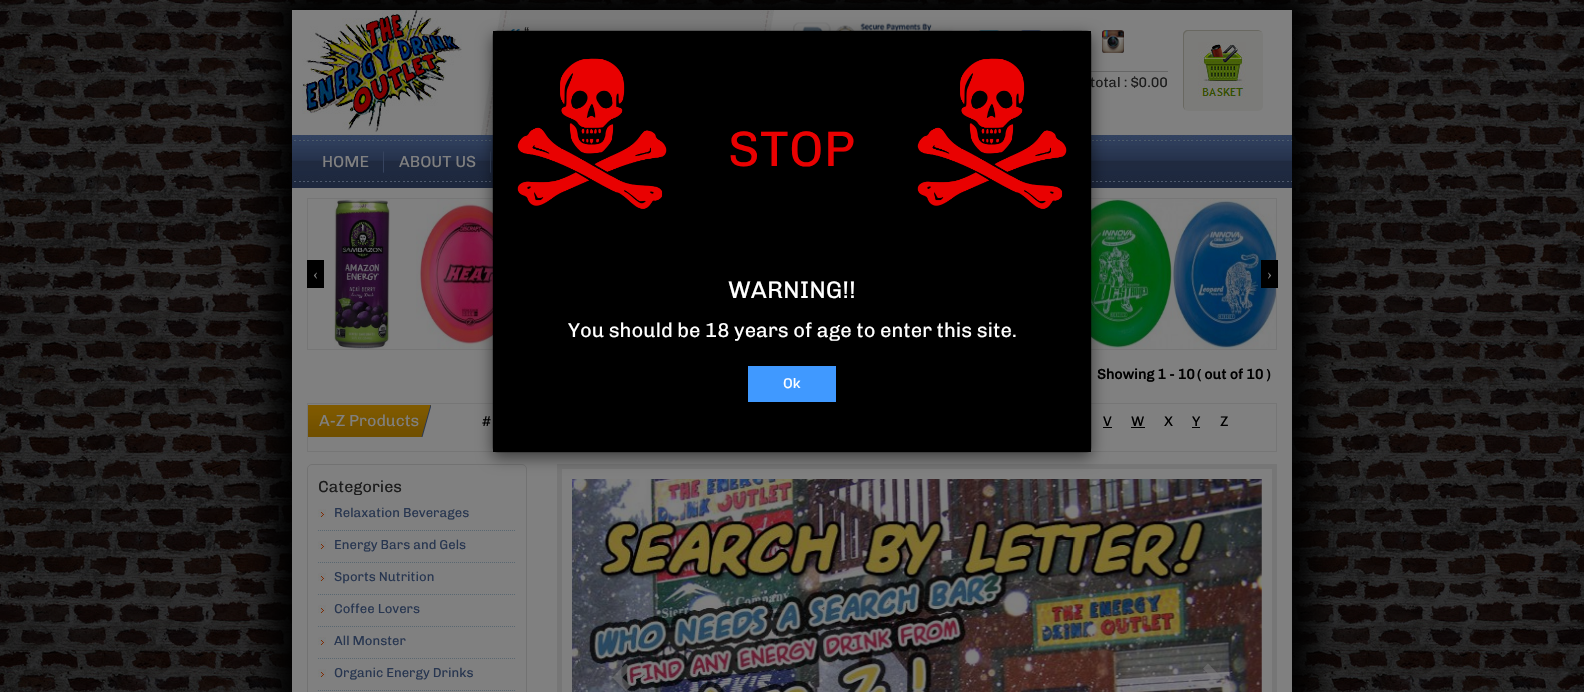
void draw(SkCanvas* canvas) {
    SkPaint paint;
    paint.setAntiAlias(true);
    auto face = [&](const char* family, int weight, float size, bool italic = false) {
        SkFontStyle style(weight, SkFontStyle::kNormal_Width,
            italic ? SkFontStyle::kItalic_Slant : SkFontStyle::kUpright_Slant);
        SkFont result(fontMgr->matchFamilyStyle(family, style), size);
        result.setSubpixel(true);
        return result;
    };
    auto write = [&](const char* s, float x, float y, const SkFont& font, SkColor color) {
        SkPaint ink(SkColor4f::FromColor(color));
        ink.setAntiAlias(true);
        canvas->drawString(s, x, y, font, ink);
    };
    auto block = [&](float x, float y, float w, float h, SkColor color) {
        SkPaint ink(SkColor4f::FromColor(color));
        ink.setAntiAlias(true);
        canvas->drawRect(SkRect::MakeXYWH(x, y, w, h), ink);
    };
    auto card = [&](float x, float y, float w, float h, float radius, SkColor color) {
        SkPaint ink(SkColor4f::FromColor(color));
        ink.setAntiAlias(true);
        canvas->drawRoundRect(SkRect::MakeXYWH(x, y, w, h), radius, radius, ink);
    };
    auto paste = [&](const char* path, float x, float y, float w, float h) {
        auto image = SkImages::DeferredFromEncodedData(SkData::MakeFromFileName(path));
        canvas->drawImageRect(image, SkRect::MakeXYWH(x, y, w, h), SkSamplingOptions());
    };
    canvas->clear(SK_ColorWHITE);
    paste("pic1.png", 0, 0, 1584, 692);
    paint.setColor(SK_ColorBLACK);
    paint.setMaskFilter(SkMaskFilter::MakeBlur(kNormal_SkBlurStyle, 15));
    canvas->drawRect(SkRect::MakeXYWH(272, -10, 1040, 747), paint);
    paint.setMaskFilter(nullptr);
    block(292, 10, 1000, 682, SkColorSetRGB(128, 128, 128));
    paste("pic2.png", 302, 10, 160, 122);
    paste("pic3.png", 481, 10, 293, 125);
    paste("pic4.png", 511, 29, 9, 2);
    auto kFont1 = face("Chivo", 400, 14);
    write("“", 524, 37, kFont1, SkColorSetRGB(28, 28, 28));
    paste("pic5.png", 793, 22, 162, 9);
    block(1091, 71, 77, 1, SkColorSetRGB(102, 102, 102));
    paste("pic6.png", 979, 30, 20, 1);
    paste("pic7.png", 1021, 30, 20, 1);
    paste("pic8.png", 1062, 30, 20, 1);
    paste("pic9.png", 1102, 30, 22, 23);
    write("total : $0.00", 1090, 87, kFont1, SkColorSetRGB(28, 28, 28));
    card(1183, 30, 80, 81, 5, SkColorSetRGB(123, 123, 121));
    paint.setColor(SkColorSetRGB(105, 104, 97));
    canvas->drawPath(SkPathBuilder().moveTo(1189, 31).lineTo(1259, 31).lineTo(1262, 32).cubicTo(1261, 31, 1259, 30, 1258, 30).lineTo(1188, 30).cubicTo(1185, 30, 1183, 32, 1183, 35).lineTo(1183, 106).cubicTo(1183, 107, 1184, 109, 1185, 110).lineTo(1184, 107).lineTo(1184, 36).cubicTo(1184, 33, 1186, 31, 1189, 31).close().detach(), paint);
    paste("pic10.png", 1198, 42, 48, 56);
    paste("pic11.png", 292, 135, 1000, 53);
    paste("pic12.png", 383, 151, 1, 22);
    auto kFont2 = face("Chivo", 400, 16);
    write("HOME", 322, 167, kFont2, SkColorSetRGB(128, 128, 128));
    paste("pic12.png", 490, 151, 1, 22);
    write("ABOUT US", 399, 167, kFont2, SkColorSetRGB(128, 128, 128));
    paint.setStyle(SkPaint::kStroke_Style);
    paint.setStrokeWidth(1);
    paint.setColor(SkColorSetRGB(118, 118, 118));
    canvas->drawRect(SkRect::MakeXYWH(307.5f, 198.5f, 969, 151), paint);
    block(307, 260, 17, 28, SK_ColorBLACK);
    auto kFont3 = face("Liberation Serif", 400, 15);
    write("‹", 313, 279, kFont3, SkColorSetRGB(128, 128, 128));
    paste("pic13.png", 334, 199, 56, 150);
    paste("pic14.png", 416, 199, 77, 150);
    paste("pic15.png", 1091, 199, 81, 150);
    paste("pic16.png", 1172, 199, 104, 150);
    block(1261, 260, 17, 28, SK_ColorBLACK);
    write("›", 1267, 279, kFont3, SkColorSetRGB(128, 128, 128));
    auto kFont4 = face("Chivo", 700, 14);
    write("Showing 1 - 10", 1097, 379, kFont4, SK_ColorBLACK);
    write("( out of 10 )", 1197, 379, kFont4, SK_ColorBLACK);
    canvas->drawRect(SkRect::MakeXYWH(307.5f, 403.5f, 969, 48), paint);
    paste("pic17.png", 308, 405, 123, 32);
    write("A-Z Products", 319, 426, kFont2, SkColorSetRGB(128, 128, 128));
    write("#", 482, 426, kFont1, SK_ColorBLACK);
    write("V", 1103, 426, kFont1, SK_ColorBLACK);
    block(1103, 427, 9, 1, SK_ColorBLACK);
    write("W", 1131, 426, kFont1, SK_ColorBLACK);
    block(1131, 427, 14, 1, SK_ColorBLACK);
    write("X", 1164, 426, kFont1, SK_ColorBLACK);
    write("Y", 1192, 426, kFont1, SK_ColorBLACK);
    block(1192, 427, 8, 1, SK_ColorBLACK);
    write("Z", 1220, 426, kFont1, SK_ColorBLACK);
    paint.setColor(SkColorSetRGB(114, 114, 114));
    canvas->drawRoundRect(SkRect::MakeXYWH(307.5f, 464.5f, 219, 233), 4.5f, 4.5f, paint);
    write("Categories", 318, 492, kFont2, SkColorSetRGB(28, 28, 28));
    paste("pic18.png", 318, 509, 8, 8);
    paint.setColor(SkColorSetRGB(89, 103, 113));
    paint.setPathEffect(SkDashPathEffect::Make({{1, 1}}, 0));
    canvas->drawPath(SkPathBuilder().moveTo(318, 530.5f).lineTo(516, 530.5f).detach(), paint);
    paint.setPathEffect(nullptr);
    auto kFont5 = face("Chivo", 400, 13);
    write("Relaxation Beverages", 334, 517, kFont5, SkColorSetRGB(40, 54, 80));
    paste("pic18.png", 318, 541, 8, 8);
    paint.setPathEffect(SkDashPathEffect::Make({{1, 1}}, 0));
    canvas->drawPath(SkPathBuilder().moveTo(318, 562.5f).lineTo(516, 562.5f).detach(), paint);
    paint.setPathEffect(nullptr);
    write("Energy Bars and Gels", 334, 549, kFont5, SkColorSetRGB(40, 54, 80));
    paste("pic18.png", 318, 573, 8, 8);
    paint.setPathEffect(SkDashPathEffect::Make({{1, 1}}, 0));
    canvas->drawPath(SkPathBuilder().moveTo(318, 594.5f).lineTo(516, 594.5f).detach(), paint);
    paint.setPathEffect(nullptr);
    write("Sports Nutrition", 334, 581, kFont5, SkColorSetRGB(40, 54, 80));
    paste("pic18.png", 318, 605, 8, 8);
    paint.setPathEffect(SkDashPathEffect::Make({{1, 1}}, 0));
    canvas->drawPath(SkPathBuilder().moveTo(318, 626.5f).lineTo(516, 626.5f).detach(), paint);
    paint.setPathEffect(nullptr);
    write("Coffee Lovers", 334, 613, kFont5, SkColorSetRGB(40, 54, 80));
    paste("pic18.png", 318, 637, 8, 8);
    paint.setPathEffect(SkDashPathEffect::Make({{1, 1}}, 0));
    canvas->drawPath(SkPathBuilder().moveTo(318, 658.5f).lineTo(516, 658.5f).detach(), paint);
    paint.setPathEffect(nullptr);
    write("All Monster", 334, 645, kFont5, SkColorSetRGB(40, 54, 80));
    paste("pic18.png", 318, 669, 8, 8);
    paint.setPathEffect(SkDashPathEffect::Make({{1, 1}}, 0));
    canvas->drawPath(SkPathBuilder().moveTo(318, 690.5f).lineTo(516, 690.5f).detach(), paint);
    paint.setPathEffect(nullptr);
    write("Organic Energy Drinks", 334, 677, kFont5, SkColorSetRGB(40, 54, 80));
    paint.setStrokeWidth(5);
    paint.setColor(SkColorSetRGB(118, 118, 118));
    canvas->drawRect(SkRect::MakeXYWH(559.5f, 466.5f, 715, 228), paint);
    paste("pic19.png", 572, 479, 690, 213);
    paint.setStyle(SkPaint::kFill_Style);
    paint.setColor(SkColorSetARGB(128, 128, 128, 128));
    canvas->drawPath(SkPathBuilder().moveTo(631, 668.5f).lineTo(622.5f, 677.5f).lineTo(631, 686).lineTo(626, 691).lineTo(612.5f, 677.5f).lineTo(626, 663.5f).close().detach(), paint);
    canvas->drawPath(SkPathBuilder().moveTo(1221.5f, 677.5f).lineTo(1208, 691).lineTo(1203, 686).lineTo(1211.5f, 677.5f).lineTo(1203, 668.5f).lineTo(1208, 663.5f).close().detach(), paint);
    paint.setColor(SkColorSetARGB(128, 0, 0, 0));
    paint.setMaskFilter(SkMaskFilter::MakeBlur(kNormal_SkBlurStyle, 7.5f));
    canvas->drawRoundRect(SkRect::MakeXYWH(492, 35, 600, 423), 6, 6, paint);
    paint.setMaskFilter(nullptr);
    paint.setStyle(SkPaint::kStroke_Style);
    paint.setStrokeWidth(1);
    paint.setColor(SkColorSetARGB(51, 0, 0, 0));
    canvas->drawRoundRect(SkRect::MakeXYWH(492.5f, 30.5f, 599, 422), 5.5f, 5.5f, paint);
    block(493, 31, 598, 421, SK_ColorBLACK);
    paste("pic20.png", 517, 58, 150, 151);
    auto kFont6 = face("Chivo", 400, 50);
    write("STOP", 728, 166, kFont6, SkColorSetRGB(233, 1, 1));
    paste("pic21.png", 917, 58, 150, 151);
    auto kFont7 = face("Chivo", 400, 24);
    write("WARNING!!", 728, 298, kFont7, SK_ColorWHITE);
    auto kFont8 = face("Chivo", 400, 20);
    write("You should be 18 years of age to enter this site.", 568, 337, kFont8, SK_ColorWHITE);
    block(748, 366, 88, 36, SkColorSetRGB(64, 153, 255));
    write("Ok", 783, 388, kFont1, SK_ColorWHITE);
}
